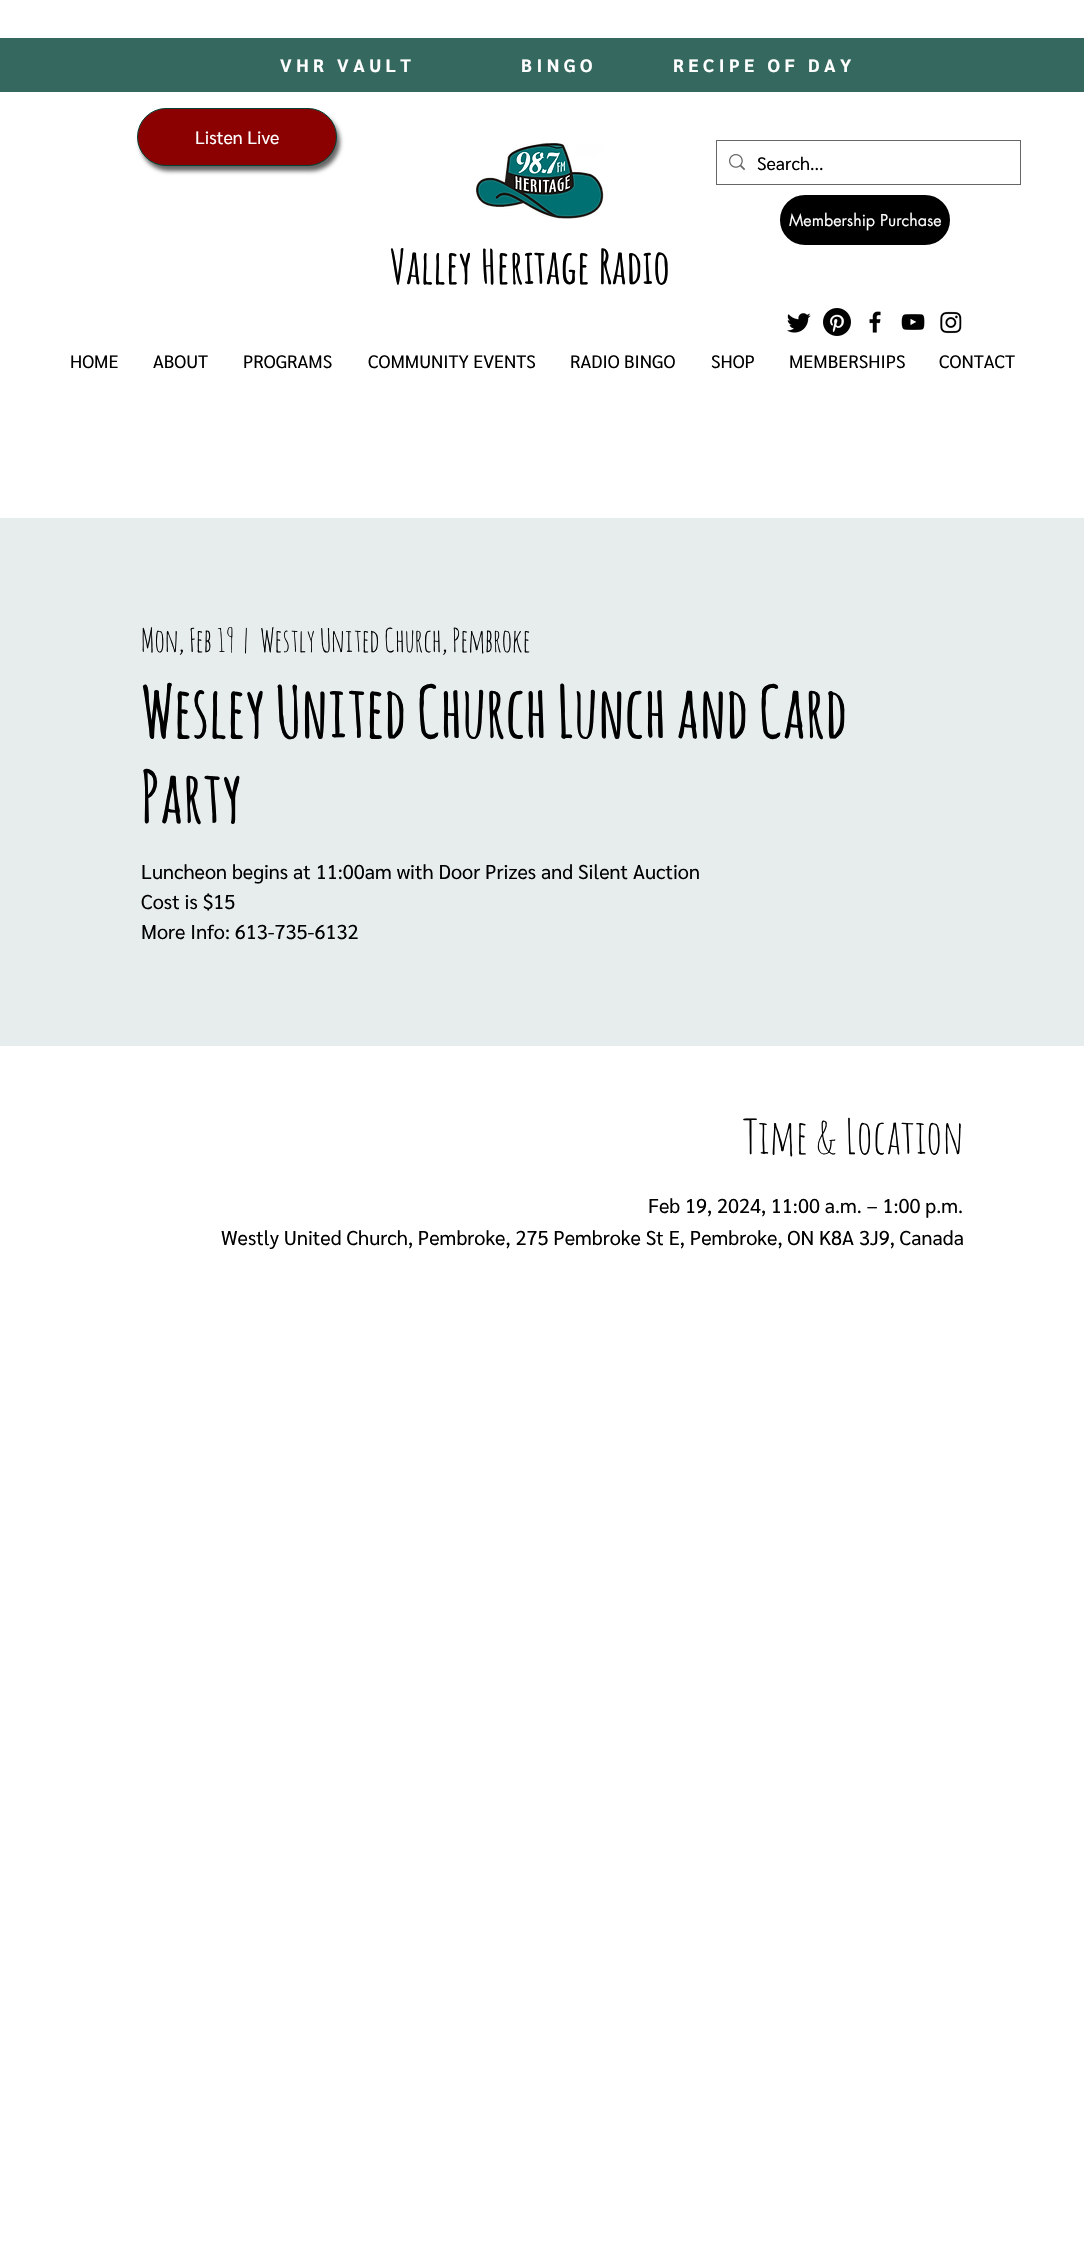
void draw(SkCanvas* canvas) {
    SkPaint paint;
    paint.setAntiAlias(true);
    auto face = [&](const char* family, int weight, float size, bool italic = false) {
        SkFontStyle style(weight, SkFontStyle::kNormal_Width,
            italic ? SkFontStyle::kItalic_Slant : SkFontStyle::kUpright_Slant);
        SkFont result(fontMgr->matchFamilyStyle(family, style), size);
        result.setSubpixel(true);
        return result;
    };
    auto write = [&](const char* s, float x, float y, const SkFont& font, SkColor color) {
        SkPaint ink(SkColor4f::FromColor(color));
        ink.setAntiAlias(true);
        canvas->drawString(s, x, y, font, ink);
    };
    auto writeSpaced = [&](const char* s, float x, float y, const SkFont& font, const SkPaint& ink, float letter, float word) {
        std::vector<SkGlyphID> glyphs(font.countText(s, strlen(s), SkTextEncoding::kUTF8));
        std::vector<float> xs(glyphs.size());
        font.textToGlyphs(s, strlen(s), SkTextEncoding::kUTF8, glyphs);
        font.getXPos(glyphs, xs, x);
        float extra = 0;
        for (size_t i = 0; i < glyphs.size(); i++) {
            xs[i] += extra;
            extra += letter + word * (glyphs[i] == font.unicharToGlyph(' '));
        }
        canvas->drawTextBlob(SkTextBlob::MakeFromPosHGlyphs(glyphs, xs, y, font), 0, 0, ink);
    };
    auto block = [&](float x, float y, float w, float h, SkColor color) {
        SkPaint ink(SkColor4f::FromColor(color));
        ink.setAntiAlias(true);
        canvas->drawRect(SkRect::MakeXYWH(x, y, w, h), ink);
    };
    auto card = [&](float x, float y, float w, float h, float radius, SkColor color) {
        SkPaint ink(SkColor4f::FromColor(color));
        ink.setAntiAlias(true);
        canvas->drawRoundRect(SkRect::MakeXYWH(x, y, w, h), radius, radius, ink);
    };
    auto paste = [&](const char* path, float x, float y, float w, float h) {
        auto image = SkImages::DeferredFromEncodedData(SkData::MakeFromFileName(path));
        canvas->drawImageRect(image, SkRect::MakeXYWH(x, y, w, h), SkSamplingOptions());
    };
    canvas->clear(SK_ColorWHITE);
    block(0, 38, 434, 54, SkColorSetRGB(53, 104, 94));
    card(254, 39, 191, 50, 25, SkColorSetRGB(53, 104, 94));
    auto kFont1 = face("Sarabun", 700, 18);
    paint.setColor(SK_ColorWHITE);
    writeSpaced("VHR VAULT", 280, 72, kFont1, paint, 4.5f, 0);
    block(434, 38, 650, 54, SkColorSetRGB(53, 104, 94));
    writeSpaced("BINGO", 521, 72, kFont1, paint, 4.5f, 0);
    writeSpaced("RECIPE OF DAY", 673, 72, kFont1, paint, 4.5f, 0);
    paint.setColor(SkColorSetARGB(153, 0, 0, 0));
    paint.setMaskFilter(SkMaskFilter::MakeBlur(kNormal_SkBlurStyle, 2));
    canvas->drawRoundRect(SkRect::MakeXYWH(140, 113, 200, 58), 29, 29, paint);
    paint.setMaskFilter(nullptr);
    paint.setColor(SkColorSetRGB(139, 0, 0));
    canvas->drawRoundRect(SkRect::MakeXYWH(137.5f, 108.5f, 199, 57), 28.5f, 28.5f, paint);
    paint.setStyle(SkPaint::kStroke_Style);
    paint.setStrokeWidth(1);
    paint.setColor(SkColorSetRGB(1, 66, 53));
    canvas->drawRoundRect(SkRect::MakeXYWH(137.5f, 108.5f, 199, 57), 28.5f, 28.5f, paint);
    auto kFont2 = face("Sarabun", 400, 18);
    write("Listen Live", 195, 144, kFont2, SK_ColorWHITE);
    paste("pic1.png", 476, 143, 128, 77);
    paint.setColor(SkColorSetRGB(102, 102, 102));
    canvas->drawRect(SkRect::MakeXYWH(716.5f, 140.5f, 304, 44), paint);
    paste("pic2.png", 729, 154, 16, 17);
    write("Search...", 757, 170, kFont2, SK_ColorBLACK);
    paint.setStyle(SkPaint::kFill_Style);
    paint.setColor(SK_ColorBLACK);
    canvas->drawRoundRect(SkRect::MakeXYWH(781, 196, 168, 48), 24, 24, paint);
    paint.setStyle(SkPaint::kStroke_Style);
    paint.setStrokeWidth(2);
    canvas->drawRoundRect(SkRect::MakeXYWH(781, 196, 168, 48), 24, 24, paint);
    auto kFont3 = face("futura", 400, 16);
    write("Membership Purchase", 789, 226, kFont3, SK_ColorWHITE);
    auto kFont4 = face("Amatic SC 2", 700, 47);
    write("Valley Heritage Radio", 390, 284, kFont4, SK_ColorBLACK);
    paste("pic3.png", 787, 313, 24, 20);
    paste("pic4.png", 823, 308, 28, 28);
    paste("pic5.png", 869, 311, 12, 22);
    paste("pic6.png", 901, 314, 24, 16);
    paste("pic7.png", 940, 311, 22, 23);
    write("HOME", 70, 368, kFont2, SK_ColorBLACK);
    write("ABOUT", 153, 368, kFont2, SK_ColorBLACK);
    write("PROGRAMS", 243, 368, kFont2, SK_ColorBLACK);
    write("COMMUNITY EVENTS", 368, 368, kFont2, SK_ColorBLACK);
    write("RADIO BINGO", 570, 368, kFont2, SK_ColorBLACK);
    write("SHOP", 711, 368, kFont2, SK_ColorBLACK);
    write("MEMBERSHIPS", 789, 368, kFont2, SK_ColorBLACK);
    write("CONTACT", 939, 368, kFont2, SK_ColorBLACK);
    block(0, 518, 1084, 528, SkColorSetRGB(230, 237, 236));
    auto kFont5 = face("Amatic SC", 400, 32);
    write("Mon, Feb 19", 141, 652, kFont5, SK_ColorBLACK);
    write("|", 243, 652, kFont5, SK_ColorBLACK);
    write("Westly United Church, Pembroke", 260, 652, kFont5, SK_ColorBLACK);
    auto kFont6 = face("Amatic SC", 700, 71);
    write("Wesley United Church Lunch and Card", 141, 738, kFont6, SK_ColorBLACK);
    write("Party", 141, 823, kFont6, SK_ColorBLACK);
    auto kFont7 = face("Sarabun", 400, 20);
    write("Luncheon begins at 11:00am with Door Prizes and Silent Auction", 141, 879, kFont7, SK_ColorBLACK);
    write("Cost is $15", 141, 909, kFont7, SK_ColorBLACK);
    write("More Info: 613-735-6132", 141, 939, kFont7, SK_ColorBLACK);
    auto kFont8 = face("Amatic SC 2", 400, 47);
    write("Time & Location", 743, 1154, kFont8, SK_ColorBLACK);
    write("Feb 19, 2024, 11:00 a.m. – 1:00 p.m.", 648, 1213, kFont7, SK_ColorBLACK);
    write("Westly United Church, Pembroke, 275 Pembroke St E, Pembroke, ON K8A 3J9, Canada", 221, 1245, kFont7, SK_ColorBLACK);
}
